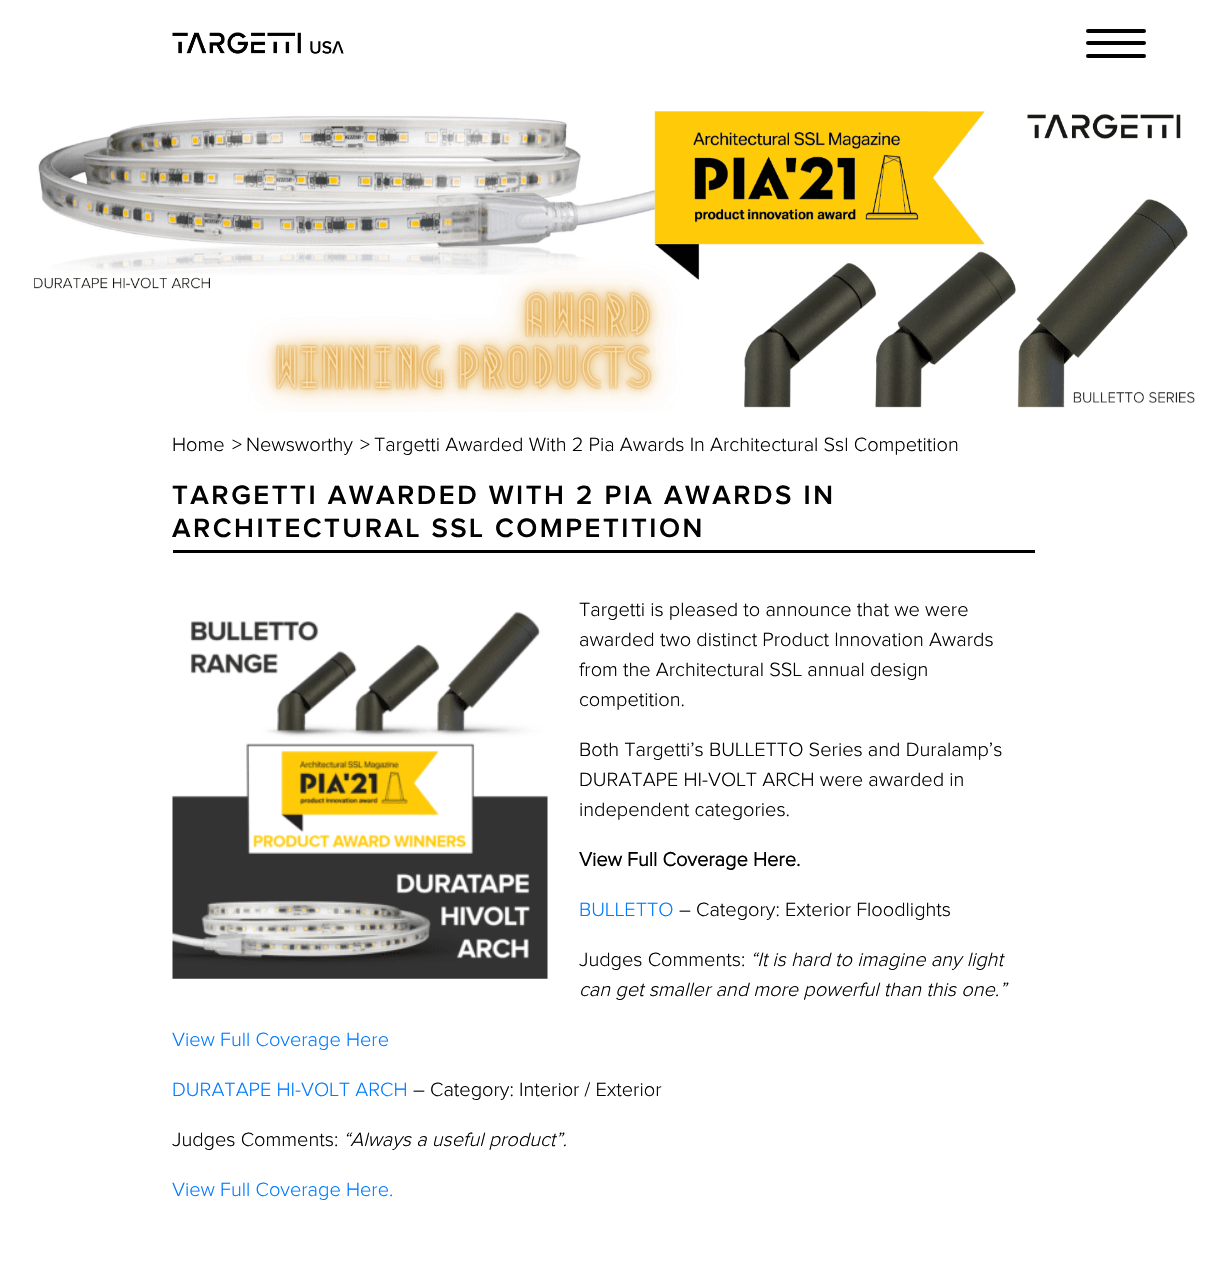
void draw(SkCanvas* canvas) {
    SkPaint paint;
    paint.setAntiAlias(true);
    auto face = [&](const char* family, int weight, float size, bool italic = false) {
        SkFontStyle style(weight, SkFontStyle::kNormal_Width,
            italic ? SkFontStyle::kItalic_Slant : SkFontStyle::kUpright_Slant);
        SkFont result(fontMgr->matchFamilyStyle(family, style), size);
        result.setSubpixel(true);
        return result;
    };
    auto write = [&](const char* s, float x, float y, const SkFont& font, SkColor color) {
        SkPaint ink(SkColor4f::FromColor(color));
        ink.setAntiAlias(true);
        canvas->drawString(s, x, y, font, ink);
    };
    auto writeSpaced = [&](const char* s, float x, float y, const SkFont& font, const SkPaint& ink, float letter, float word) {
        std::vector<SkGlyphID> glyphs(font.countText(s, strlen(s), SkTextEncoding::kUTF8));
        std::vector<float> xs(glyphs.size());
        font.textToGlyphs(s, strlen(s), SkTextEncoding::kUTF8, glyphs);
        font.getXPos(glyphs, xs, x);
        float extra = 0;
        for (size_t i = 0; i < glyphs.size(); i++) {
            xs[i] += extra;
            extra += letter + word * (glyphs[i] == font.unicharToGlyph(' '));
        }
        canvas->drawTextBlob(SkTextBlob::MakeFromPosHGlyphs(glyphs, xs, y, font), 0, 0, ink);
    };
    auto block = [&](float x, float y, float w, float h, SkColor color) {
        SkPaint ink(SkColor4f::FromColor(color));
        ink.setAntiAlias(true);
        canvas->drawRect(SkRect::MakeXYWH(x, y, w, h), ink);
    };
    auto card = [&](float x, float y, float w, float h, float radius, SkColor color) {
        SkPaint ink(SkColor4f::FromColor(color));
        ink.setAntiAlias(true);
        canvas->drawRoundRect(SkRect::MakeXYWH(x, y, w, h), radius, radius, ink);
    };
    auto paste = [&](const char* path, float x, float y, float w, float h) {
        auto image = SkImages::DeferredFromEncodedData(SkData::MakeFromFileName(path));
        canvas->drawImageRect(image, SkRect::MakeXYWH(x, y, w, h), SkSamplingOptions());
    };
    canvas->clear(SK_ColorWHITE);
    paste("pic1.png", 172, 32, 172, 22);
    card(1086, 41, 60, 4, 2, SkColorSetRGB(2, 2, 2));
    card(1086, 29, 60, 4, 2, SkColorSetRGB(2, 2, 2));
    card(1086, 54, 60, 4, 2, SkColorSetRGB(2, 2, 2));
    paste("pic2.png", 34, 111, 1161, 301);
    auto kFont1 = face("Proxima Nova", 300, 20);
    write("Home", 172, 451, kFont1, SkColorSetRGB(1, 1, 1));
    write(">", 232, 451, kFont1, SkColorSetRGB(1, 1, 1));
    write("Newsworthy", 246, 451, kFont1, SkColorSetRGB(1, 1, 1));
    write(">", 360, 451, kFont1, SkColorSetRGB(1, 1, 1));
    write("Targetti Awarded With 2 Pia Awards In Architectural Ssl Competition", 374, 451, kFont1, SkColorSetRGB(1, 1, 1));
    auto kFont2 = face("Proxima Nova", 600, 27.5f);
    paint.setColor(SkColorSetRGB(1, 1, 1));
    writeSpaced("TARGETTI AWARDED WITH 2 PIA AWARDS IN", 172, 504, kFont2, paint, 2.5f, 0);
    writeSpaced("ARCHITECTURAL SSL COMPETITION", 172, 537, kFont2, paint, 2.5f, 0);
    block(173, 550, 862, 3, SK_ColorBLACK);
    paste("pic3.png", 172, 611, 376, 368);
    write("Targetti is pleased to announce that we were", 579, 616, kFont1, SkColorSetRGB(1, 1, 1));
    write("awarded two distinct Product Innovation Awards", 579, 646, kFont1, SkColorSetRGB(1, 1, 1));
    write("from the Architectural SSL annual design", 579, 676, kFont1, SkColorSetRGB(1, 1, 1));
    write("competition.", 579, 706, kFont1, SkColorSetRGB(1, 1, 1));
    write("Both Targetti’s BULLETTO Series and Duralamp’s", 579, 756, kFont1, SkColorSetRGB(1, 1, 1));
    write("DURATAPE HI-VOLT ARCH were awarded in", 579, 786, kFont1, SkColorSetRGB(1, 1, 1));
    write("independent categories.", 579, 816, kFont1, SkColorSetRGB(1, 1, 1));
    auto kFont3 = face("Proxima Nova", 700, 20);
    write("View Full Coverage Here.", 579, 866, kFont3, SkColorSetRGB(1, 1, 1));
    write("BULLETTO", 579, 916, kFont1, SkColorSetRGB(0, 123, 255));
    write("– Category: Exterior Floodlights", 679, 916, kFont1, SkColorSetRGB(1, 1, 1));
    write("Judges Comments:", 579, 966, kFont1, SkColorSetRGB(1, 1, 1));
    auto kFont4 = face("Proxima Nova", 300, 20, true);
    write("“It is hard to imagine any light", 750, 966, kFont4, SkColorSetRGB(1, 1, 1));
    write("can get smaller and more powerful than this one.”", 579, 996, kFont4, SkColorSetRGB(1, 1, 1));
    write("View Full Coverage Here", 172, 1046, kFont1, SkColorSetRGB(0, 123, 255));
    write("DURATAPE HI-VOLT ARCH", 172, 1096, kFont1, SkColorSetRGB(0, 123, 255));
    write("– Category: Interior / Exterior", 413, 1096, kFont1, SkColorSetRGB(1, 1, 1));
    write("Judges Comments:", 172, 1146, kFont1, SkColorSetRGB(1, 1, 1));
    write("“Always a useful product”.", 343, 1146, kFont4, SkColorSetRGB(1, 1, 1));
    write("View Full Coverage Here.", 172, 1196, kFont1, SkColorSetRGB(0, 123, 255));
}
